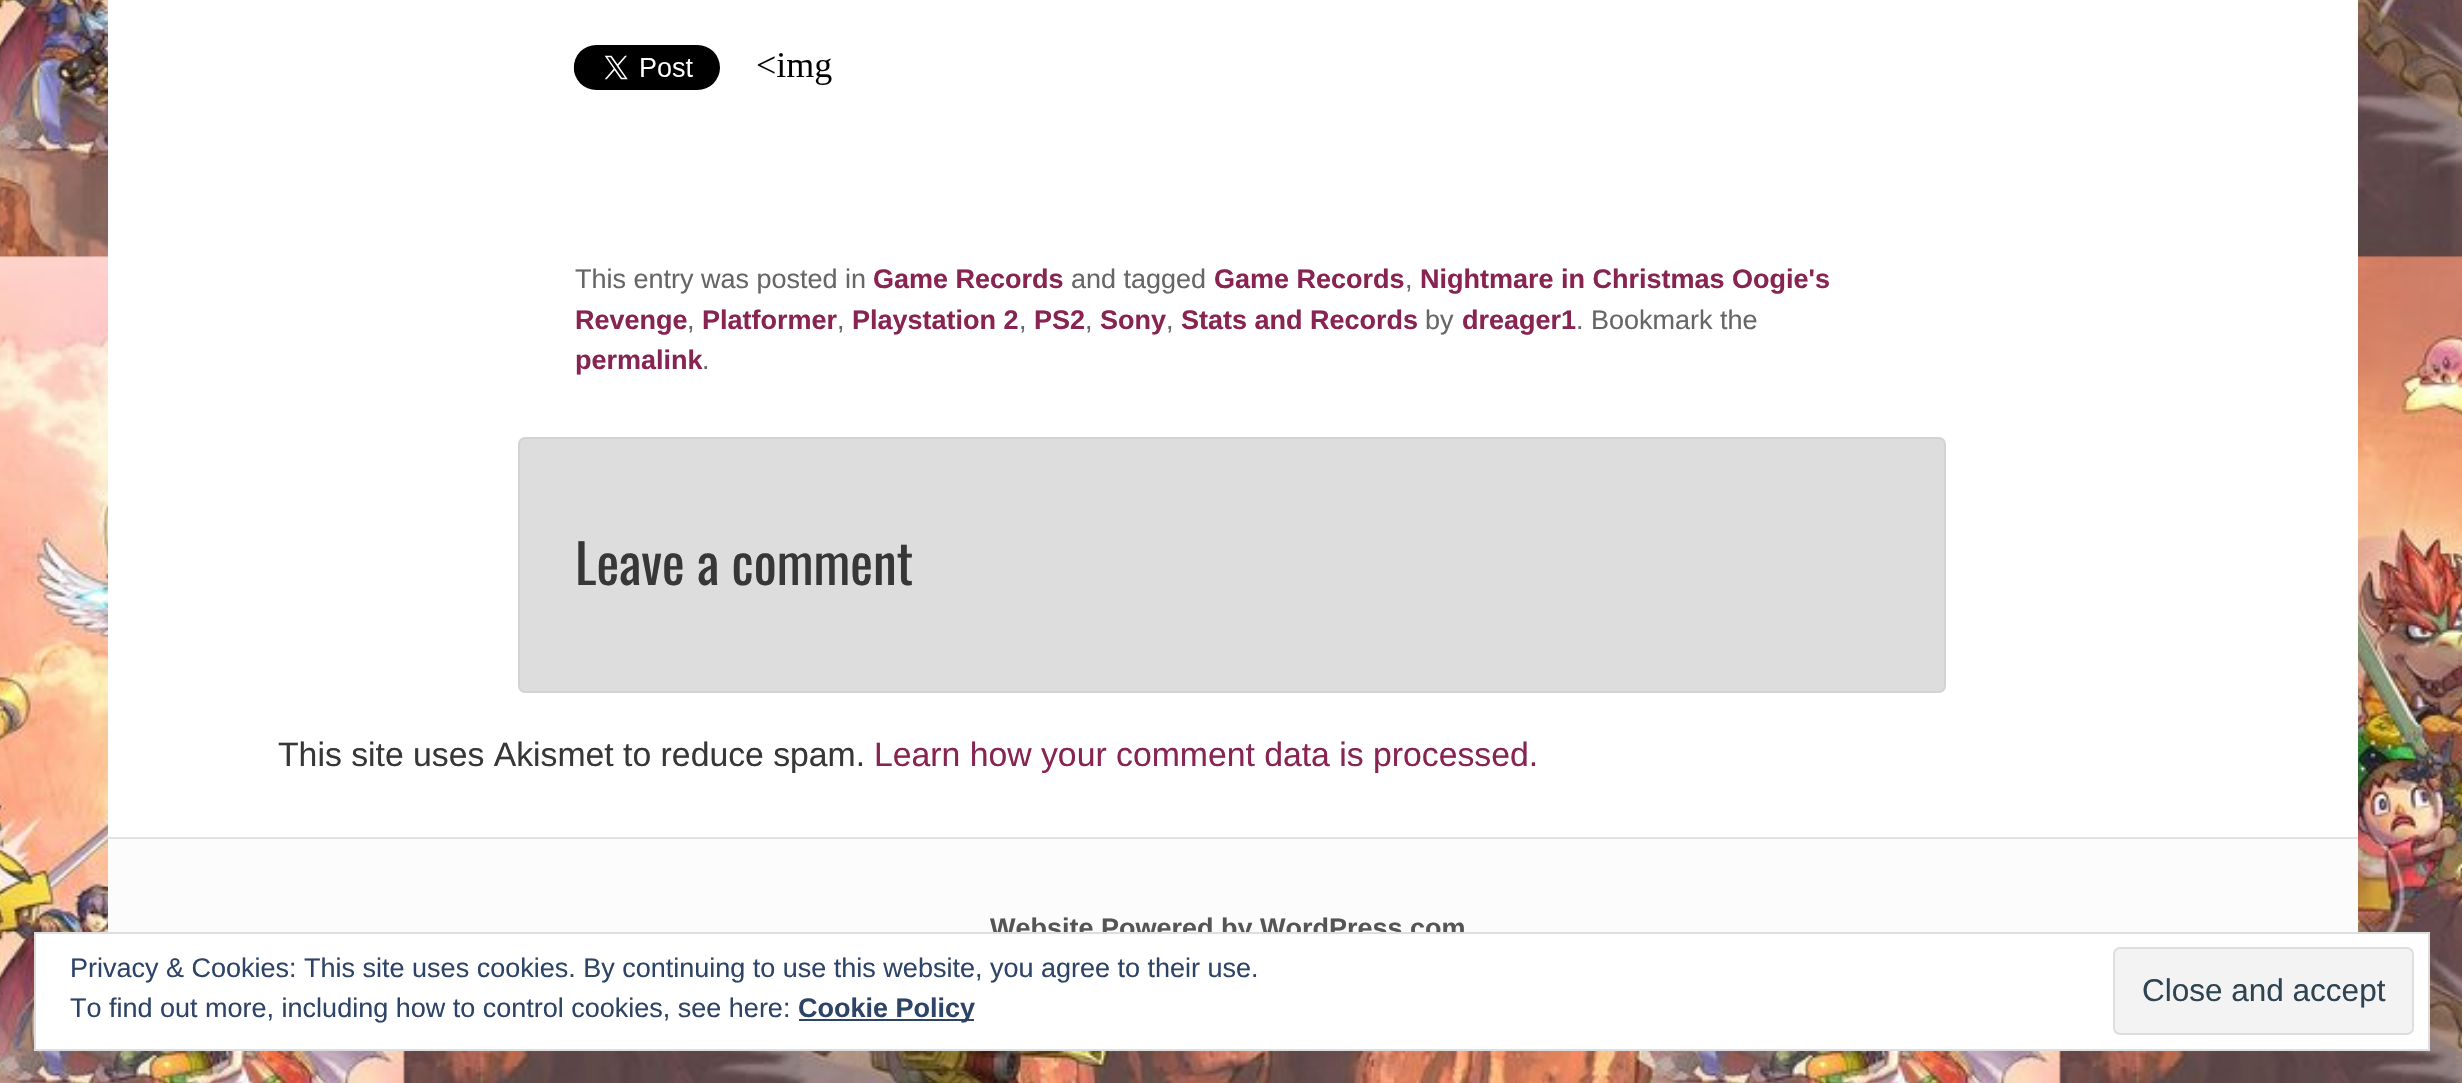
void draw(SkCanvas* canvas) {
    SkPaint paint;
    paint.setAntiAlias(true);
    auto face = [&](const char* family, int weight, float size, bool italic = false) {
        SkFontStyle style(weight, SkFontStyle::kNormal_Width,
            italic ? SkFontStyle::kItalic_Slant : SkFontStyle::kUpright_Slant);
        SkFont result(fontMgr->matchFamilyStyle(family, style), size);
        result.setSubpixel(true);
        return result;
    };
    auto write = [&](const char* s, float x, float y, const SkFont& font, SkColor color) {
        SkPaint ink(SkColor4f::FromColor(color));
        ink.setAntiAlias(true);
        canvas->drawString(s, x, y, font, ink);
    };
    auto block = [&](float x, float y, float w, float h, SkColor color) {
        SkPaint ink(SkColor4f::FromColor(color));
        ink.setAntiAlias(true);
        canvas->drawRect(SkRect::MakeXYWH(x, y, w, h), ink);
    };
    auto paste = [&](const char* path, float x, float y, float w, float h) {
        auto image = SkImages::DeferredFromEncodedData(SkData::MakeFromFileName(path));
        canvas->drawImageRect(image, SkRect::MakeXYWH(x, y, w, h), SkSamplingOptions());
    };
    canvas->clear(SK_ColorWHITE);
    paste("pic1.png", 0, 0, 2462, 1083);
    block(108, 0, 2250, 837, SK_ColorWHITE);
    paste("pic2.png", 573, 45, 147, 45);
    paste("pic3.png", 757, 53, 75, 32);
    auto kFont1 = face("Liberation Sans", 400, 27);
    write("This entry was posted in", 575, 288, kFont1, SkColorSetRGB(102, 102, 102));
    auto kFont2 = face("Liberation Sans", 700, 27);
    write("Game Records", 873, 288, kFont2, SkColorSetRGB(136, 36, 81));
    write("and tagged", 1071, 288, kFont1, SkColorSetRGB(102, 102, 102));
    write("Game Records", 1214, 288, kFont2, SkColorSetRGB(136, 36, 81));
    write(",", 1405, 288, kFont1, SkColorSetRGB(102, 102, 102));
    write("Nightmare in Christmas Oogie's", 1420, 288, kFont2, SkColorSetRGB(136, 36, 81));
    write("Revenge", 575, 329, kFont2, SkColorSetRGB(136, 36, 81));
    write(",", 687, 329, kFont1, SkColorSetRGB(102, 102, 102));
    write("Platformer", 702, 329, kFont2, SkColorSetRGB(136, 36, 81));
    write(",", 837, 329, kFont1, SkColorSetRGB(102, 102, 102));
    write("Playstation 2", 852, 329, kFont2, SkColorSetRGB(136, 36, 81));
    write(",", 1019, 329, kFont1, SkColorSetRGB(102, 102, 102));
    write("PS2", 1034, 329, kFont2, SkColorSetRGB(136, 36, 81));
    write(",", 1085, 329, kFont1, SkColorSetRGB(102, 102, 102));
    write("Sony", 1100, 329, kFont2, SkColorSetRGB(136, 36, 81));
    write(",", 1166, 329, kFont1, SkColorSetRGB(102, 102, 102));
    write("Stats and Records", 1181, 329, kFont2, SkColorSetRGB(136, 36, 81));
    write("by", 1425, 329, kFont1, SkColorSetRGB(102, 102, 102));
    write("dreager1", 1462, 329, kFont2, SkColorSetRGB(136, 36, 81));
    write(". Bookmark the", 1576, 329, kFont1, SkColorSetRGB(102, 102, 102));
    write("permalink", 575, 369, kFont2, SkColorSetRGB(136, 36, 81));
    write(".", 702, 369, kFont1, SkColorSetRGB(102, 102, 102));
    paint.setColor(SkColorSetRGB(221, 221, 221));
    canvas->drawRoundRect(SkRect::MakeXYWH(519, 438, 1426, 254), 6, 6, paint);
    paint.setStyle(SkPaint::kStroke_Style);
    paint.setStrokeWidth(2);
    paint.setColor(SkColorSetRGB(211, 211, 211));
    canvas->drawRoundRect(SkRect::MakeXYWH(519, 438, 1426, 254), 6, 6, paint);
    auto kFont3 = face("Oswald", 400, 54);
    write("Leave a comment", 575, 585, kFont3, SkColorSetRGB(55, 55, 55));
    auto kFont4 = face("Liberation Sans", 400, 33.75f);
    write("This site uses Akismet to reduce spam.", 278, 766, kFont4, SkColorSetRGB(55, 55, 55));
    write("Learn how your comment data is processed.", 874, 766, kFont4, SkColorSetRGB(136, 36, 81));
    block(108, 839, 2250, 93, SkColorSetRGB(253, 252, 252));
    block(108, 837, 2250, 2, SkColorSetRGB(228, 227, 227));
    write("Website Powered by WordPress.com", 990, 937, kFont2, SkColorSetRGB(85, 85, 85));
    paint.setStyle(SkPaint::kFill_Style);
    paint.setColor(SK_ColorWHITE);
    canvas->drawRect(SkRect::MakeXYWH(35, 933, 2394, 117), paint);
    paint.setStyle(SkPaint::kStroke_Style);
    paint.setColor(SkColorSetRGB(222, 222, 222));
    canvas->drawRect(SkRect::MakeXYWH(35, 933, 2394, 117), paint);
    write("Privacy & Cookies: This site uses cookies. By continuing to use this website, you agree to their use.", 70, 977, kFont1, SkColorSetRGB(46, 68, 103));
    write("To find out more, including how to control cookies, see here:", 70, 1017, kFont1, SkColorSetRGB(46, 68, 103));
    block(799, 1019, 175, 2, SkColorSetRGB(46, 68, 103));
    write("Cookie Policy", 798, 1017, kFont2, SkColorSetRGB(46, 68, 103));
    paint.setStyle(SkPaint::kFill_Style);
    paint.setColor(SkColorSetRGB(243, 243, 243));
    canvas->drawRoundRect(SkRect::MakeXYWH(2114, 948, 299, 86), 6, 6, paint);
    paint.setStyle(SkPaint::kStroke_Style);
    paint.setColor(SkColorSetRGB(222, 222, 222));
    canvas->drawRoundRect(SkRect::MakeXYWH(2114, 948, 299, 86), 6, 6, paint);
    auto kFont5 = face("Liberation Sans", 400, 31.5f);
    write("Close and accept", 2142, 1001, kFont5, SkColorSetRGB(46, 68, 83));
}
